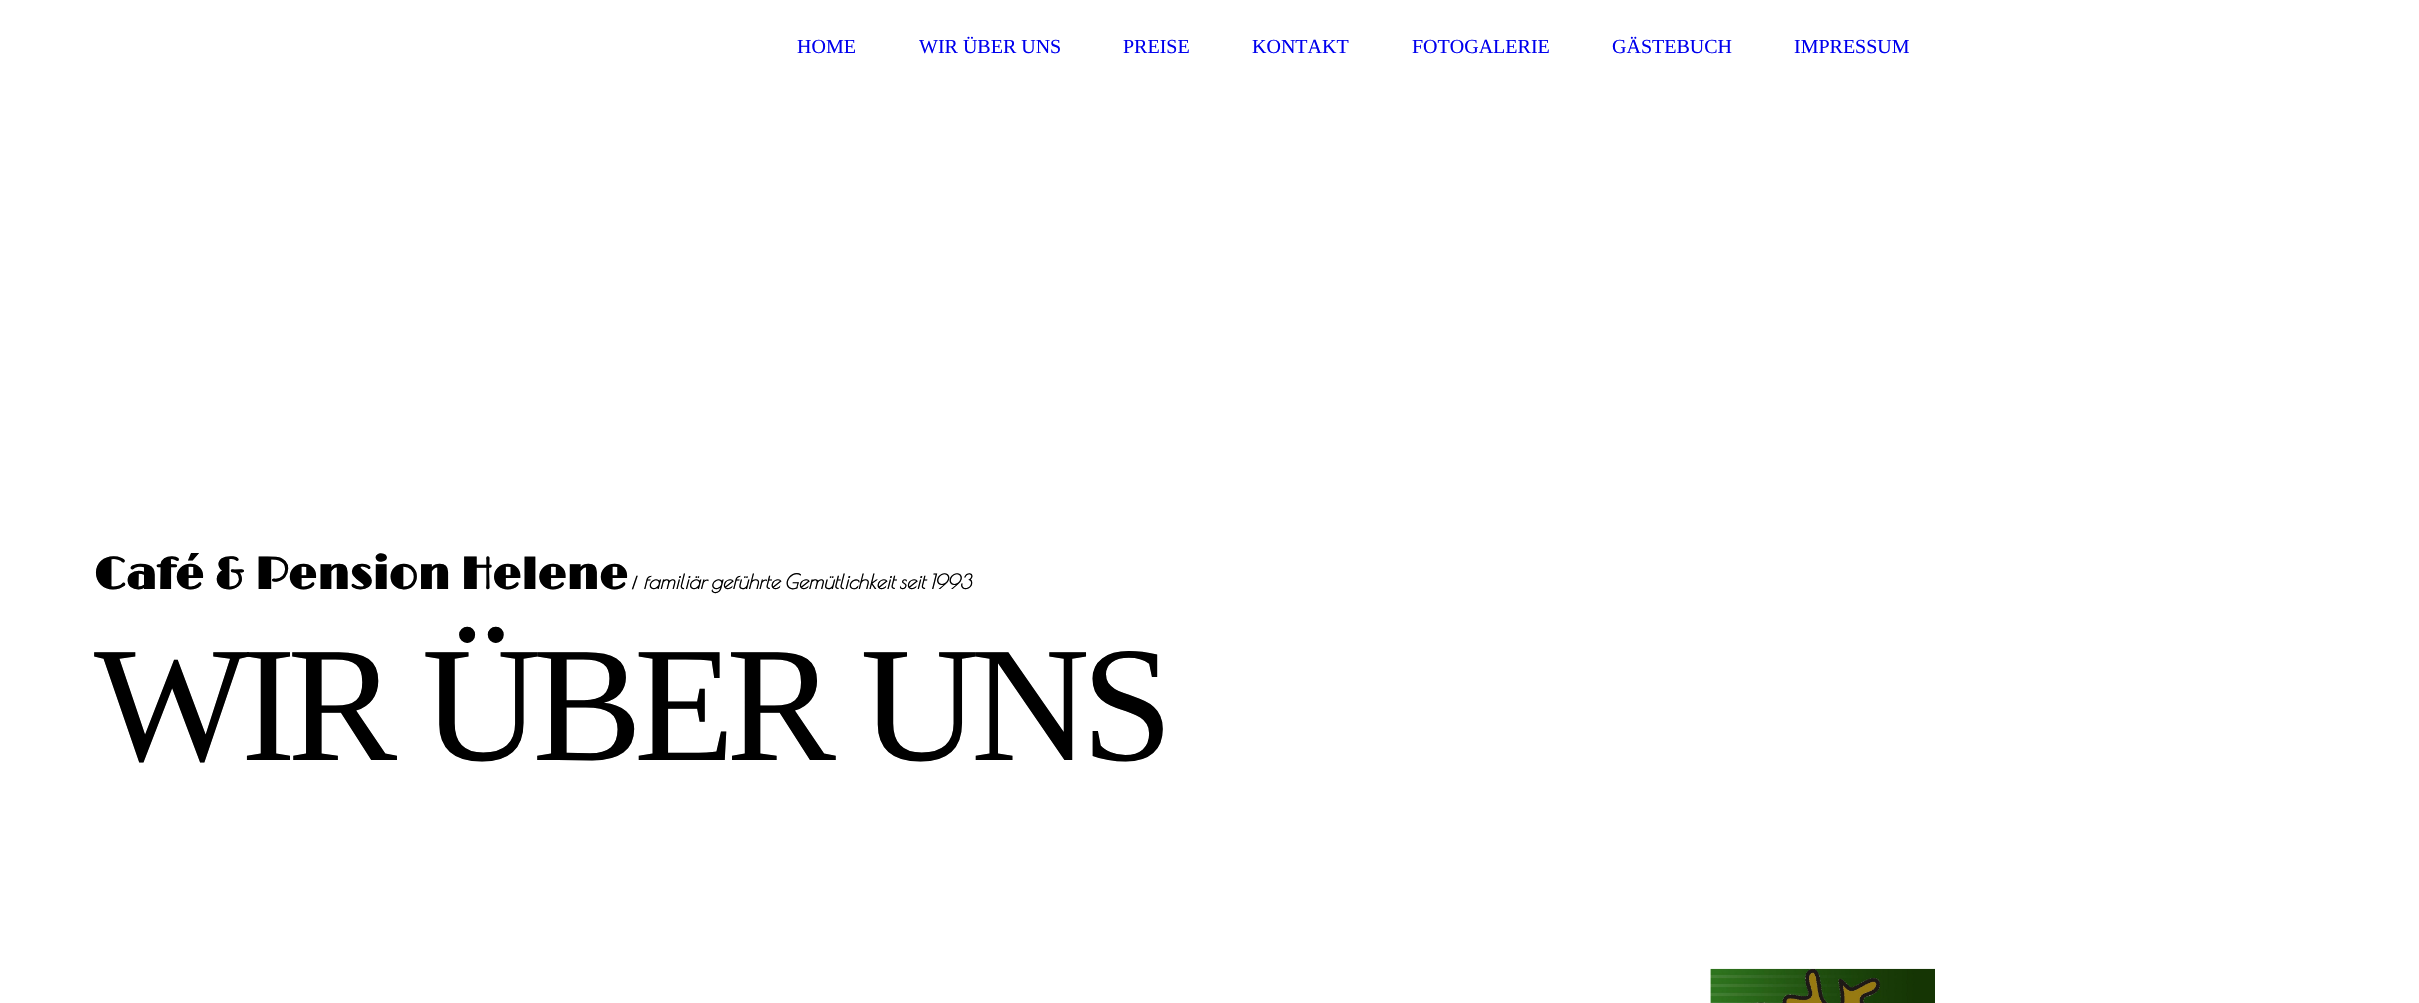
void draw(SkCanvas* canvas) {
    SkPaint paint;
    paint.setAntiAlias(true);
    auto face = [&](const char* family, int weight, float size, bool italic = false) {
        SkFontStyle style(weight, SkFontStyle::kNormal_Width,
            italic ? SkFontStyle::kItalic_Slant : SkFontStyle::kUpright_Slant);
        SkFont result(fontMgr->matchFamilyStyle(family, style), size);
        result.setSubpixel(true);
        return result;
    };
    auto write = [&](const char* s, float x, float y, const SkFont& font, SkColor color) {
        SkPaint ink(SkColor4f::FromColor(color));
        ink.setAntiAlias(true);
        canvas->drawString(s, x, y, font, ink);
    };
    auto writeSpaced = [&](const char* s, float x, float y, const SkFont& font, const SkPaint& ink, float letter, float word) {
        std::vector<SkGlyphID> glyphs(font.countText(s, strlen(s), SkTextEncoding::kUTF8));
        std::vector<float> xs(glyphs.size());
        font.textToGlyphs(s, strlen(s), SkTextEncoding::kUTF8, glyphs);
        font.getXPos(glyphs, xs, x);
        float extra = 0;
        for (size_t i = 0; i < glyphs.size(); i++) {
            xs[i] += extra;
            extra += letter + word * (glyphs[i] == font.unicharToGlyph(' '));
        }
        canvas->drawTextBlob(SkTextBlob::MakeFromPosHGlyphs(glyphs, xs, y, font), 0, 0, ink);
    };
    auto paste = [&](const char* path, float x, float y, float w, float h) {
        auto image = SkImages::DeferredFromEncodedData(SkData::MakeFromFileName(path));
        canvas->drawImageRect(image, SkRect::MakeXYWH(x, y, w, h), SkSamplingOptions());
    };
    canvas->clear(SK_ColorWHITE);
    auto kFont1 = face("Liberation Serif", 400, 20);
    write("HOME", 797, 53, kFont1, SkColorSetRGB(0, 0, 238));
    write("WIR ÜBER UNS", 919, 53, kFont1, SkColorSetRGB(0, 0, 238));
    write("PREISE", 1123, 53, kFont1, SkColorSetRGB(0, 0, 238));
    write("KONTAKT", 1252, 53, kFont1, SkColorSetRGB(0, 0, 238));
    write("FOTOGALERIE", 1412, 53, kFont1, SkColorSetRGB(0, 0, 238));
    write("GÄSTEBUCH", 1612, 53, kFont1, SkColorSetRGB(0, 0, 238));
    write("IMPRESSUM", 1794, 53, kFont1, SkColorSetRGB(0, 0, 238));
    auto kFont2 = face("Limelight", 700, 45);
    write("Café & Pension Helene", 94, 589, kFont2, SK_ColorBLACK);
    auto kFont3 = face("Liberation Serif", 700, 20);
    write("/", 632, 589, kFont3, SK_ColorBLACK);
    auto kFont4 = face("Poiret One", 700, 20, true);
    write("familiär geführte Gemütlichkeit seit 1993", 643, 589, kFont4, SK_ColorBLACK);
    auto kFont5 = face("Liberation Serif", 400, 164.5f);
    paint.setColor(SK_ColorBLACK);
    writeSpaced("WIR ÜBER UNS", 94, 760, kFont5, paint, -8.25f, 0);
    paste("pic1.png", 1710, 968, 225, 35);
}
